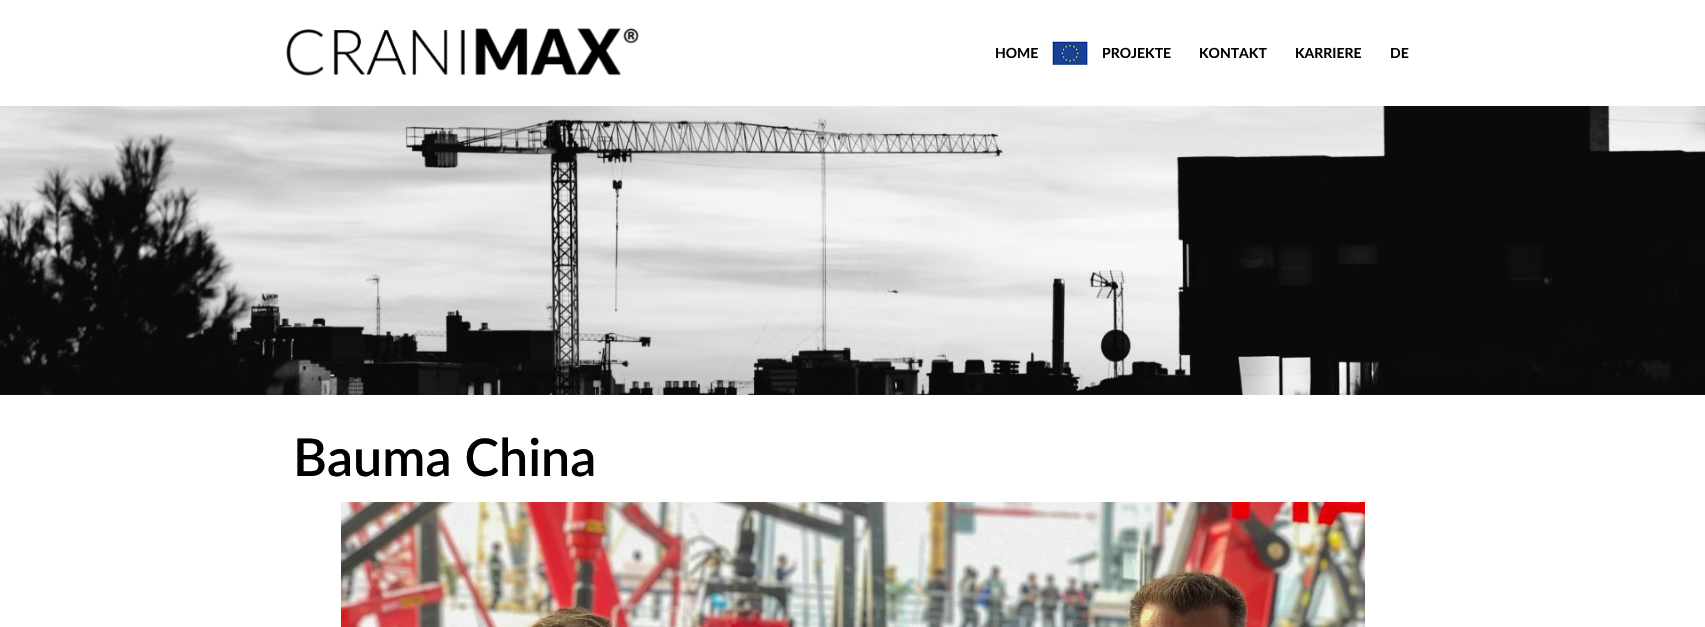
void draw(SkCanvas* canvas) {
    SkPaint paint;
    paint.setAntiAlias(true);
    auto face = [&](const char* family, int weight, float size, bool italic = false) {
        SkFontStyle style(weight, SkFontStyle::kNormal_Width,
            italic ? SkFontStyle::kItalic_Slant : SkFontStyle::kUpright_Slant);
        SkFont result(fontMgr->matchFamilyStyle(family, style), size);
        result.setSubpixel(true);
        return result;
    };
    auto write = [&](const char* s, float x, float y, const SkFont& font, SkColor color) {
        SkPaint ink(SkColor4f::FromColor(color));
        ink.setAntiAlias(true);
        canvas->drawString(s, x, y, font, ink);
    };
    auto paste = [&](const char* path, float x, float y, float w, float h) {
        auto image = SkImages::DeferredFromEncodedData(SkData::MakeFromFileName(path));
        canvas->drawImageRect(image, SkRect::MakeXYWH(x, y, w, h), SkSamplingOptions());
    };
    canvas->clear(SK_ColorWHITE);
    paste("pic1.png", 286, 28, 353, 48);
    auto kFont1 = face("Lato", 700, 14);
    write("HOME", 995, 58, kFont1, SK_ColorBLACK);
    paste("pic2.png", 1052, 41, 36, 24);
    write("PROJEKTE", 1102, 58, kFont1, SK_ColorBLACK);
    write("KONTAKT", 1199, 58, kFont1, SK_ColorBLACK);
    write("KARRIERE", 1295, 58, kFont1, SK_ColorBLACK);
    write("DE", 1390, 58, kFont1, SK_ColorBLACK);
    paste("pic3.png", 0, 106, 1705, 289);
    auto kFont2 = face("Lato", 600, 52);
    write("Bauma China", 293, 476, kFont2, SK_ColorBLACK);
    paste("pic4.png", 341, 502, 1024, 125);
}
